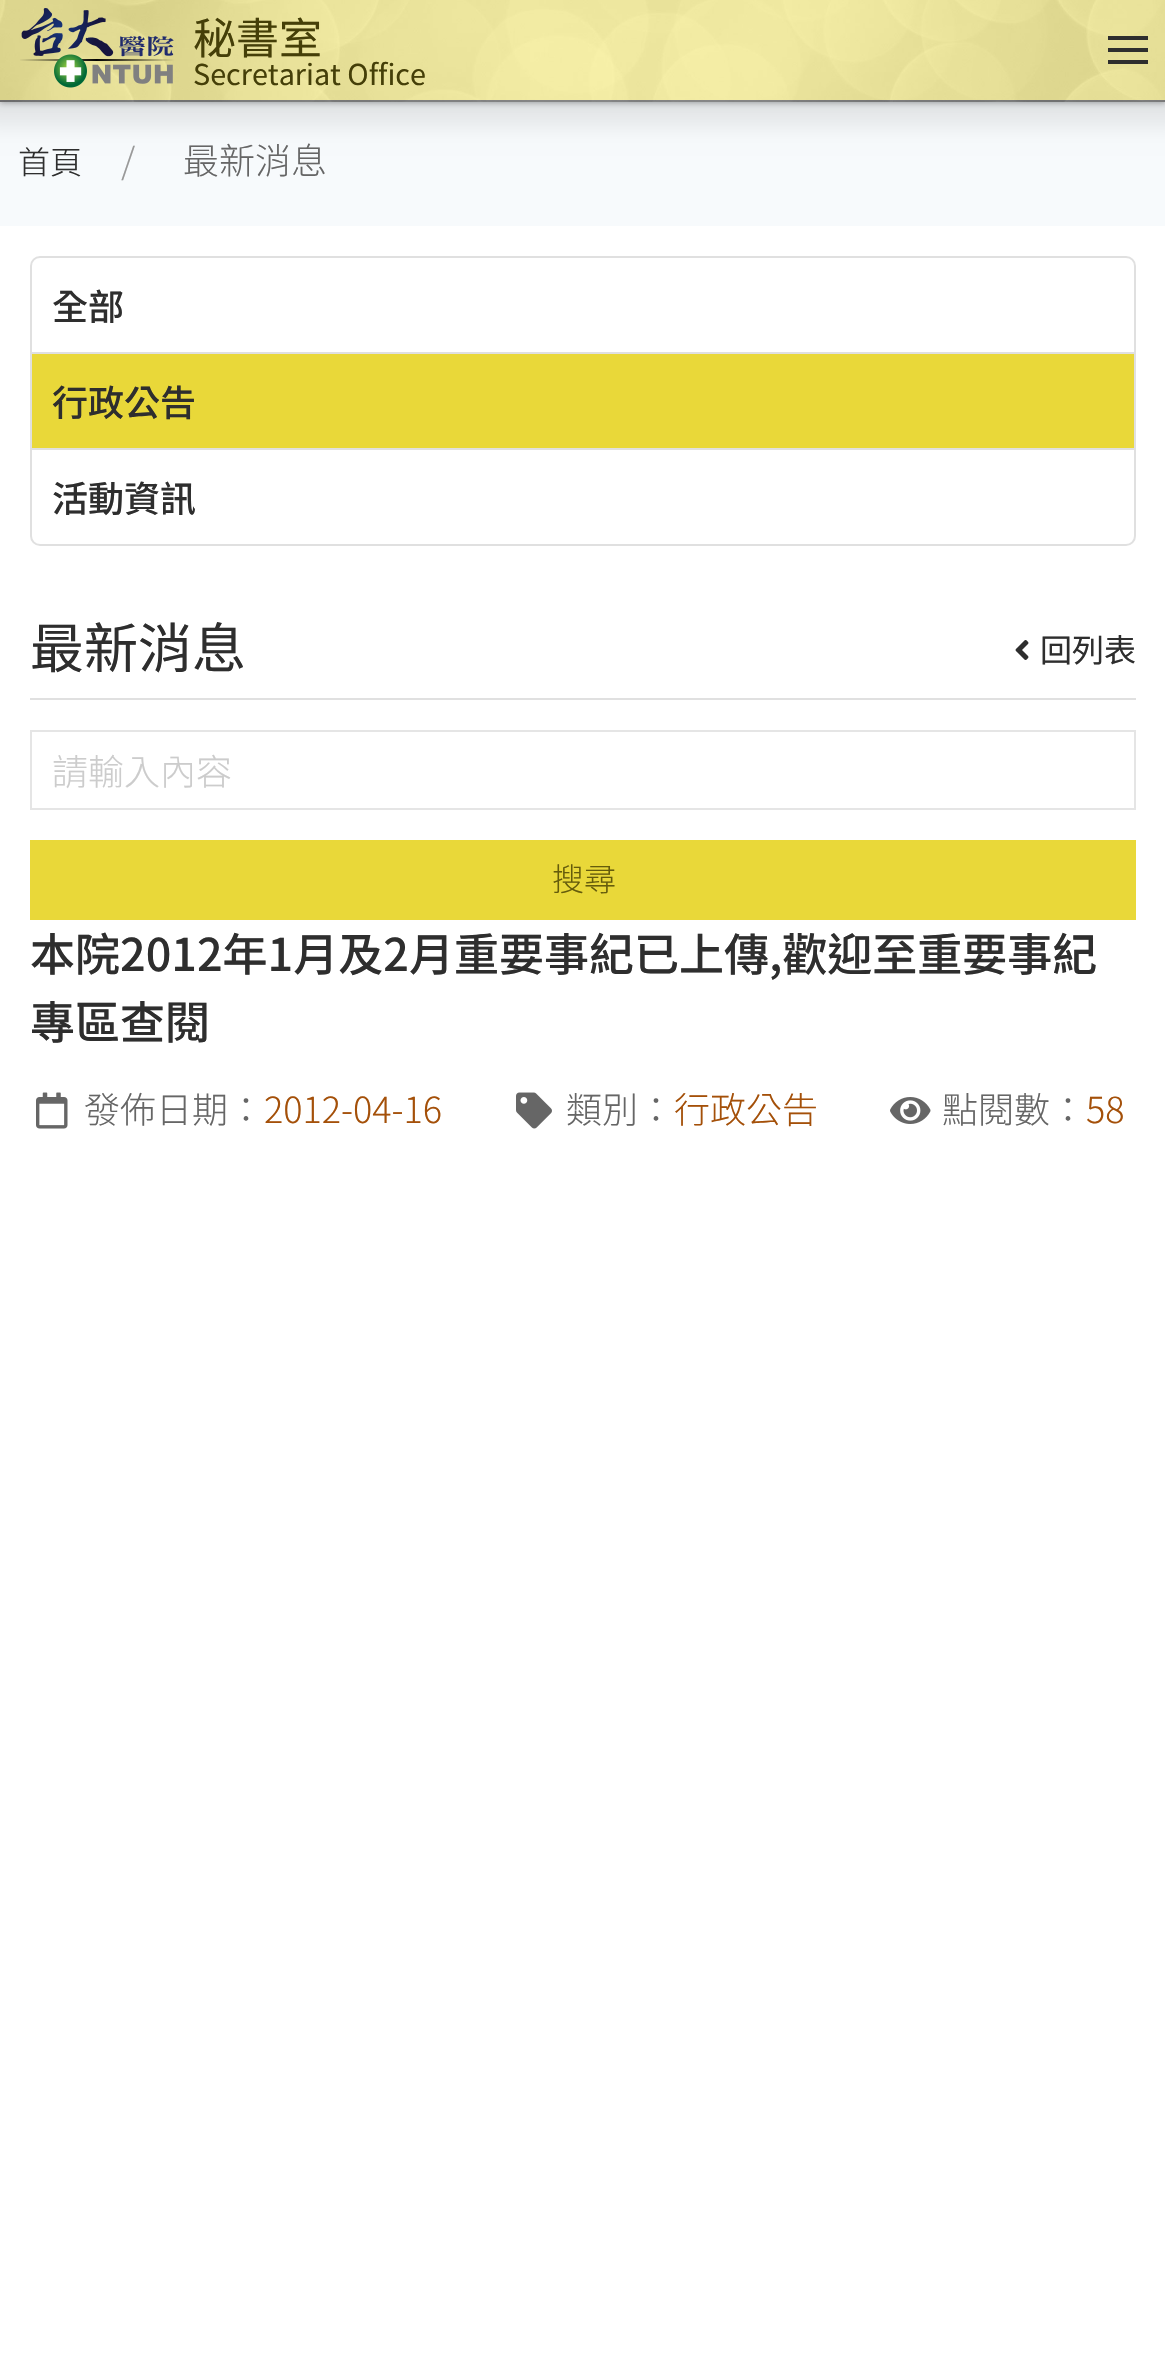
void draw(SkCanvas* canvas) {
    SkPaint paint;
    paint.setAntiAlias(true);
    auto face = [&](const char* family, int weight, float size, bool italic = false) {
        SkFontStyle style(weight, SkFontStyle::kNormal_Width,
            italic ? SkFontStyle::kItalic_Slant : SkFontStyle::kUpright_Slant);
        SkFont result(fontMgr->matchFamilyStyle(family, style), size);
        result.setSubpixel(true);
        return result;
    };
    auto write = [&](const char* s, float x, float y, const SkFont& font, SkColor color) {
        SkPaint ink(SkColor4f::FromColor(color));
        ink.setAntiAlias(true);
        canvas->drawString(s, x, y, font, ink);
    };
    auto block = [&](float x, float y, float w, float h, SkColor color) {
        SkPaint ink(SkColor4f::FromColor(color));
        ink.setAntiAlias(true);
        canvas->drawRect(SkRect::MakeXYWH(x, y, w, h), ink);
    };
    auto paste = [&](const char* path, float x, float y, float w, float h) {
        auto image = SkImages::DeferredFromEncodedData(SkData::MakeFromFileName(path));
        canvas->drawImageRect(image, SkRect::MakeXYWH(x, y, w, h), SkSamplingOptions());
    };
    canvas->clear(SkColorSetRGB(247, 250, 252));
    paint.setColor(SkColorSetARGB(15, 0, 0, 0));
    paint.setMaskFilter(SkMaskFilter::MakeBlur(kNormal_SkBlurStyle, 2));
    canvas->drawRect(SkRect::MakeXYWH(0, 2, 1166, 102), paint);
    paint.setMaskFilter(nullptr);
    paint.setColor(SkColorSetARGB(26, 0, 0, 0));
    paint.setMaskFilter(SkMaskFilter::MakeBlur(kNormal_SkBlurStyle, 3));
    canvas->drawRect(SkRect::MakeXYWH(0, 2, 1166, 102), paint);
    paint.setMaskFilter(nullptr);
    paint.setColor(SkColorSetARGB(15, 0, 0, 0));
    paint.setMaskFilter(SkMaskFilter::MakeBlur(kNormal_SkBlurStyle, 2));
    canvas->drawRect(SkRect::MakeXYWH(0, 2, 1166, 100), paint);
    paint.setMaskFilter(nullptr);
    paint.setColor(SkColorSetARGB(26, 0, 0, 0));
    paint.setMaskFilter(SkMaskFilter::MakeBlur(kNormal_SkBlurStyle, 3));
    canvas->drawRect(SkRect::MakeXYWH(0, 2, 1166, 100), paint);
    paint.setMaskFilter(nullptr);
    paint.setColor(SkColorSetARGB(20, 0, 0, 0));
    paint.setMaskFilter(SkMaskFilter::MakeBlur(kNormal_SkBlurStyle, 10));
    canvas->drawRect(SkRect::MakeXYWH(-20, -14, 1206, 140), paint);
    paint.setMaskFilter(nullptr);
    block(0, 0, 1165, 100, SkColorSetRGB(255, 240, 95));
    block(0, 100, 1165, 2, SkColorSetARGB(204, 0, 0, 0));
    paste("pic1.png", 0, 0, 1165, 102);
    paste("pic2.png", 20, 8, 154, 80);
    auto kFont1 = face("Noto Sans TC", 400, 43);
    write("秘書室", 193, 54, kFont1, SkColorSetRGB(69, 63, 8));
    auto kFont2 = face("Noto Sans TC", 400, 28.75f);
    write("Secretariat Office", 193, 85, kFont2, SkColorSetRGB(69, 63, 8));
    block(1108, 48, 40, 4, SkColorSetRGB(46, 46, 46));
    block(1108, 36, 40, 4, SkColorSetRGB(46, 46, 46));
    block(1108, 60, 40, 4, SkColorSetRGB(46, 46, 46));
    auto kFont3 = face("Noto Sans TC", 300, 32);
    write("首頁", 18, 174, kFont3, SkColorSetRGB(46, 46, 46));
    auto kFont4 = face("Noto Sans TC", 300, 36);
    write("/", 121, 174, kFont4, SkColorSetRGB(153, 153, 153));
    write("最新消息", 183, 174, kFont4, SkColorSetRGB(102, 102, 102));
    block(0, 226, 1165, 2142, SK_ColorWHITE);
    paint.setStyle(SkPaint::kStroke_Style);
    paint.setStrokeWidth(2);
    paint.setColor(SkColorSetRGB(224, 224, 224));
    canvas->drawPath(SkPathBuilder().moveTo(40, 257).lineTo(1126, 257).cubicTo(1131, 257, 1135, 261, 1135, 266).lineTo(1135, 353).lineTo(31, 353).lineTo(31, 266).cubicTo(31, 261, 35, 257, 40, 257).close().detach(), paint);
    auto kFont5 = face("Noto Sans TC", 500, 36);
    write("全部", 52, 320, kFont5, SkColorSetRGB(46, 46, 46));
    canvas->drawRect(SkRect::MakeXYWH(31, 353, 1104, 96), paint);
    block(32, 354, 1102, 94, SkColorSetRGB(233, 216, 57));
    write("行政公告", 52, 416, kFont5, SkColorSetRGB(46, 46, 46));
    paint.setStyle(SkPaint::kFill_Style);
    paint.setColor(SK_ColorWHITE);
    canvas->drawPath(SkPathBuilder().moveTo(31, 449).lineTo(1135, 449).lineTo(1135, 536).cubicTo(1135, 541, 1131, 545, 1126, 545).lineTo(40, 545).cubicTo(35, 545, 31, 541, 31, 536).close().detach(), paint);
    paint.setStyle(SkPaint::kStroke_Style);
    paint.setColor(SkColorSetRGB(224, 224, 224));
    canvas->drawPath(SkPathBuilder().moveTo(31, 449).lineTo(1135, 449).lineTo(1135, 536).cubicTo(1135, 541, 1131, 545, 1126, 545).lineTo(40, 545).cubicTo(35, 545, 31, 541, 31, 536).close().detach(), paint);
    write("活動資訊", 52, 512, kFont5, SkColorSetRGB(46, 46, 46));
    block(30, 698, 1106, 2, SkColorSetRGB(224, 224, 224));
    auto kFont6 = face("Noto Sans TC", 400, 54);
    write("最新消息", 30, 668, kFont6, SkColorSetRGB(46, 46, 46));
    paste("pic3.png", 1015, 640, 14, 20);
    auto kFont7 = face("Noto Sans TC", 400, 32);
    write("回列表", 1040, 662, kFont7, SkColorSetRGB(46, 46, 46));
    paint.setColor(SkColorSetRGB(229, 229, 229));
    canvas->drawRect(SkRect::MakeXYWH(31, 731, 1104, 78), paint);
    write("請輸入內容", 52, 785, kFont4, SkColorSetRGB(204, 204, 204));
    block(30, 840, 1106, 80, SkColorSetRGB(233, 216, 57));
    write("搜尋", 552, 891, kFont3, SkColorSetRGB(101, 92, 11));
    auto kFont8 = face("Noto Sans TC", 500, 45);
    write("本院2012年1月及2月重要事紀已上傳,歡迎至重要事紀", 30, 971, kFont8, SkColorSetRGB(46, 46, 46));
    write("專區查閱", 30, 1039, kFont8, SkColorSetRGB(46, 46, 46));
    paste("pic4.png", 36, 1092, 32, 37);
    write("發佈日期：", 84, 1123, kFont4, SkColorSetRGB(102, 102, 102));
    write("2012-04-16", 264, 1123, kFont4, SkColorSetRGB(164, 80, 9));
    paste("pic5.png", 516, 1092, 36, 37);
    write("類別：", 566, 1123, kFont4, SkColorSetRGB(102, 102, 102));
    write("行政公告", 674, 1123, kFont4, SkColorSetRGB(164, 80, 9));
    paste("pic6.png", 890, 1097, 41, 27);
    write("點閱數：", 942, 1123, kFont4, SkColorSetRGB(102, 102, 102));
    write("58", 1086, 1123, kFont4, SkColorSetRGB(164, 80, 9));
}
